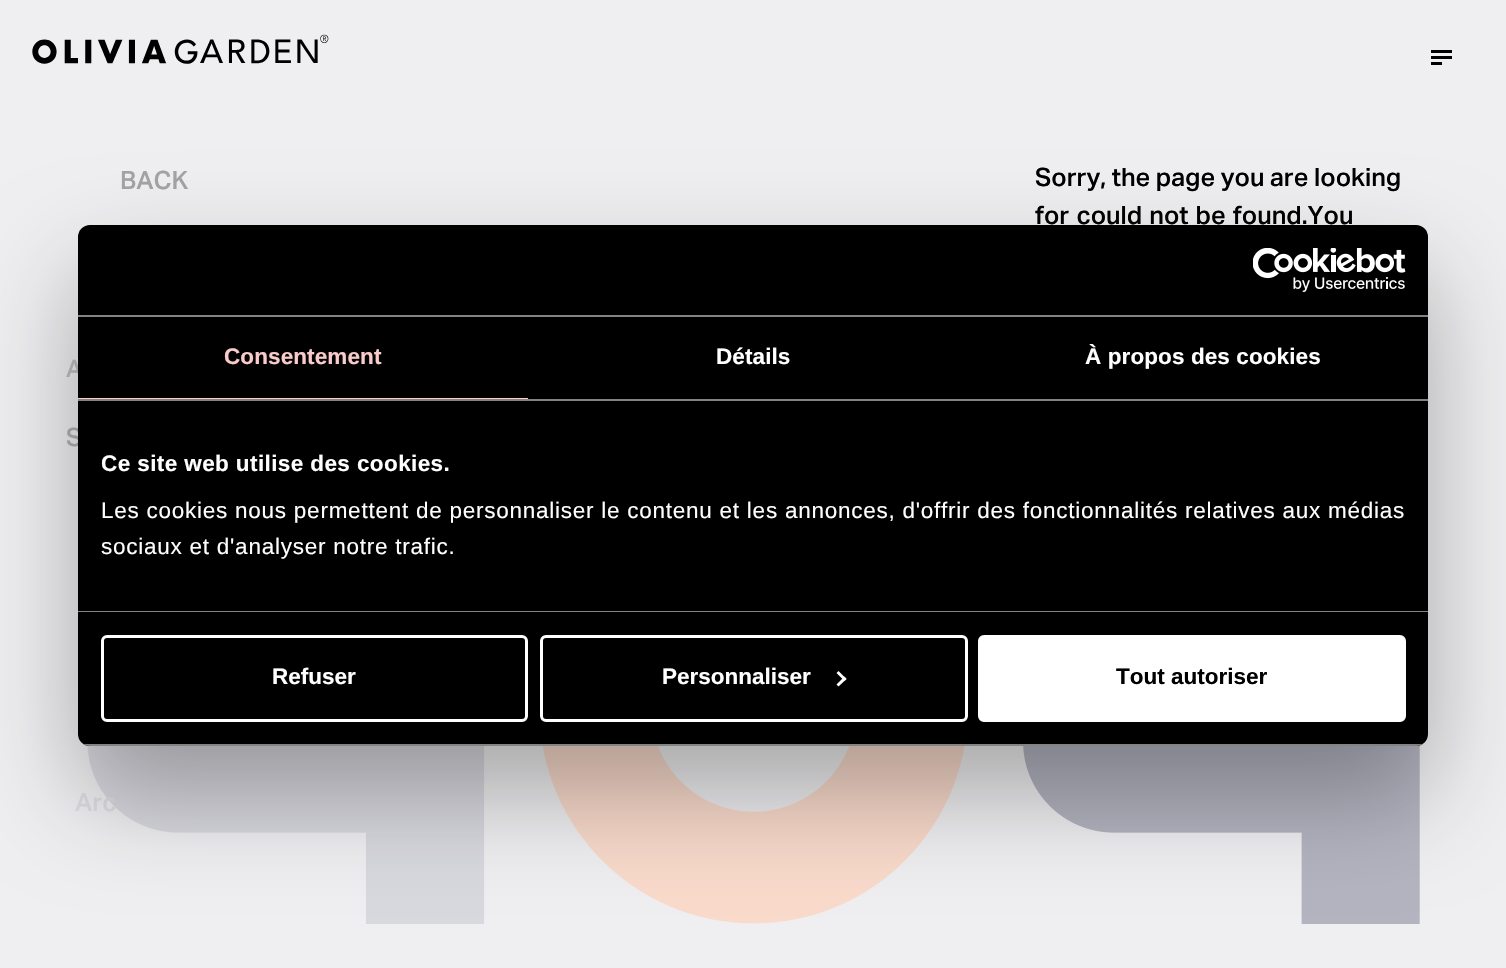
void draw(SkCanvas* canvas) {
    SkPaint paint;
    paint.setAntiAlias(true);
    auto face = [&](const char* family, int weight, float size, bool italic = false) {
        SkFontStyle style(weight, SkFontStyle::kNormal_Width,
            italic ? SkFontStyle::kItalic_Slant : SkFontStyle::kUpright_Slant);
        SkFont result(fontMgr->matchFamilyStyle(family, style), size);
        result.setSubpixel(true);
        return result;
    };
    auto write = [&](const char* s, float x, float y, const SkFont& font, SkColor color) {
        SkPaint ink(SkColor4f::FromColor(color));
        ink.setAntiAlias(true);
        canvas->drawString(s, x, y, font, ink);
    };
    auto writeSpaced = [&](const char* s, float x, float y, const SkFont& font, const SkPaint& ink, float letter, float word) {
        std::vector<SkGlyphID> glyphs(font.countText(s, strlen(s), SkTextEncoding::kUTF8));
        std::vector<float> xs(glyphs.size());
        font.textToGlyphs(s, strlen(s), SkTextEncoding::kUTF8, glyphs);
        font.getXPos(glyphs, xs, x);
        float extra = 0;
        for (size_t i = 0; i < glyphs.size(); i++) {
            xs[i] += extra;
            extra += letter + word * (glyphs[i] == font.unicharToGlyph(' '));
        }
        canvas->drawTextBlob(SkTextBlob::MakeFromPosHGlyphs(glyphs, xs, y, font), 0, 0, ink);
    };
    auto block = [&](float x, float y, float w, float h, SkColor color) {
        SkPaint ink(SkColor4f::FromColor(color));
        ink.setAntiAlias(true);
        canvas->drawRect(SkRect::MakeXYWH(x, y, w, h), ink);
    };
    auto card = [&](float x, float y, float w, float h, float radius, SkColor color) {
        SkPaint ink(SkColor4f::FromColor(color));
        ink.setAntiAlias(true);
        canvas->drawRoundRect(SkRect::MakeXYWH(x, y, w, h), radius, radius, ink);
    };
    auto paste = [&](const char* path, float x, float y, float w, float h) {
        auto image = SkImages::DeferredFromEncodedData(SkData::MakeFromFileName(path));
        canvas->drawImageRect(image, SkRect::MakeXYWH(x, y, w, h), SkSamplingOptions());
    };
    canvas->clear(SkColorSetRGB(239, 239, 241));
    paste("pic1.png", 32, 34, 297, 30);
    block(1431, 50, 21, 3, SK_ColorBLACK);
    block(1431, 56, 21, 3, SK_ColorBLACK);
    block(1431, 62, 11, 3, SK_ColorBLACK);
    auto kFont1 = face("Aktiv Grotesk", 500, 24);
    write("A", 66, 377, kFont1, SkColorSetRGB(190, 190, 192));
    auto kFont2 = face("Aktiv Grotesk", 500, 25.25f);
    write("BACK", 120, 189, kFont2, SkColorSetRGB(163, 163, 164));
    paste("pic2.png", 87, 745, 1333, 179);
    write("Arc", 75, 811, kFont2, SkColorSetRGB(221, 221, 227));
    write("S", 66, 446, kFont2, SkColorSetRGB(176, 176, 177));
    write("Sorry, the page you are looking", 1035, 186, kFont2, SK_ColorBLACK);
    paint.setColor(SK_ColorBLACK);
    writeSpaced("for could not be found.You", 1035, 224, kFont2, paint, 0, 1.5f);
    paint.setColor(SkColorSetARGB(77, 0, 0, 0));
    paint.setMaskFilter(SkMaskFilter::MakeBlur(kNormal_SkBlurStyle, 51));
    canvas->drawRoundRect(SkRect::MakeXYWH(78, 273, 1350, 521), 12, 12, paint);
    paint.setMaskFilter(nullptr);
    card(78, 225, 1350, 521, 12, SK_ColorBLACK);
    block(78, 315, 1350, 2, SkColorSetRGB(132, 131, 131));
    paste("pic3.png", 1253, 248, 153, 44);
    block(78, 399, 1350, 2, SkColorSetRGB(132, 131, 131));
    block(78, 398, 450, 1, SkColorSetRGB(249, 203, 203));
    auto kFont3 = face("Liberation Sans", 700, 22.5f);
    paint.setColor(SkColorSetRGB(249, 203, 203));
    writeSpaced("Consentement", 224, 364, kFont3, paint, 0.1f, 0);
    paint.setColor(SK_ColorWHITE);
    writeSpaced("Détails", 716, 364, kFont3, paint, 0.1f, 0);
    writeSpaced("À propos des cookies", 1085, 364, kFont3, paint, 0.1f, 0);
    block(78, 611, 1350, 1, SkColorSetRGB(132, 131, 131));
    writeSpaced("Ce site web utilise des cookies.", 101, 471, kFont3, paint, 0.4f, 0);
    auto kFont4 = face("Liberation Sans", 400, 22.5f);
    writeSpaced("Les cookies nous permettent de personnaliser le contenu et les annonces, d'offrir des fonctionnalités relatives aux médias", 101, 518, kFont4, paint, 0.75f, 0);
    writeSpaced("sociaux et d'analyser notre trafic.", 101, 554, kFont4, paint, 0.75f, 0);
    canvas->save();
    canvas->clipPath(SkPathBuilder().moveTo(90, 225).lineTo(1416, 225).cubicTo(1422.5f, 225, 1428, 230.5f, 1428, 237).lineTo(1428, 734).cubicTo(1428, 740.5f, 1422.5f, 746, 1416, 746).lineTo(90, 746).cubicTo(83.5f, 746, 78, 740.5f, 78, 734).lineTo(78, 237).cubicTo(78, 230.5f, 83.5f, 225, 90, 225).close().detach(), true);
    block(78, 744, 1350, 2, SkColorSetRGB(132, 131, 131));
    canvas->restore();
    paint.setStyle(SkPaint::kStroke_Style);
    paint.setStrokeWidth(3);
    canvas->drawRoundRect(SkRect::MakeXYWH(102.5f, 636.5f, 424, 84), 4.5f, 4.5f, paint);
    write("Refuser", 272, 684, kFont3, SK_ColorWHITE);
    canvas->drawRoundRect(SkRect::MakeXYWH(541.5f, 636.5f, 425, 84), 4.5f, 4.5f, paint);
    write("Personnaliser", 662, 684, kFont3, SK_ColorWHITE);
    paint.setStyle(SkPaint::kFill_Style);
    canvas->drawPath(SkPathBuilder().moveTo(838.5f, 671).lineTo(846.5f, 679).lineTo(844.5f, 681).lineTo(836.5f, 673).close().detach(), paint);
    canvas->drawPath(SkPathBuilder().moveTo(844.5f, 676.5f).lineTo(846.5f, 679).lineTo(838.5f, 686.5f).lineTo(836.5f, 684.5f).close().detach(), paint);
    canvas->drawRoundRect(SkRect::MakeXYWH(979.5f, 636.5f, 425, 84), 4.5f, 4.5f, paint);
    paint.setStyle(SkPaint::kStroke_Style);
    canvas->drawRoundRect(SkRect::MakeXYWH(979.5f, 636.5f, 425, 84), 4.5f, 4.5f, paint);
    write("Tout autoriser", 1116, 684, kFont3, SK_ColorBLACK);
}
